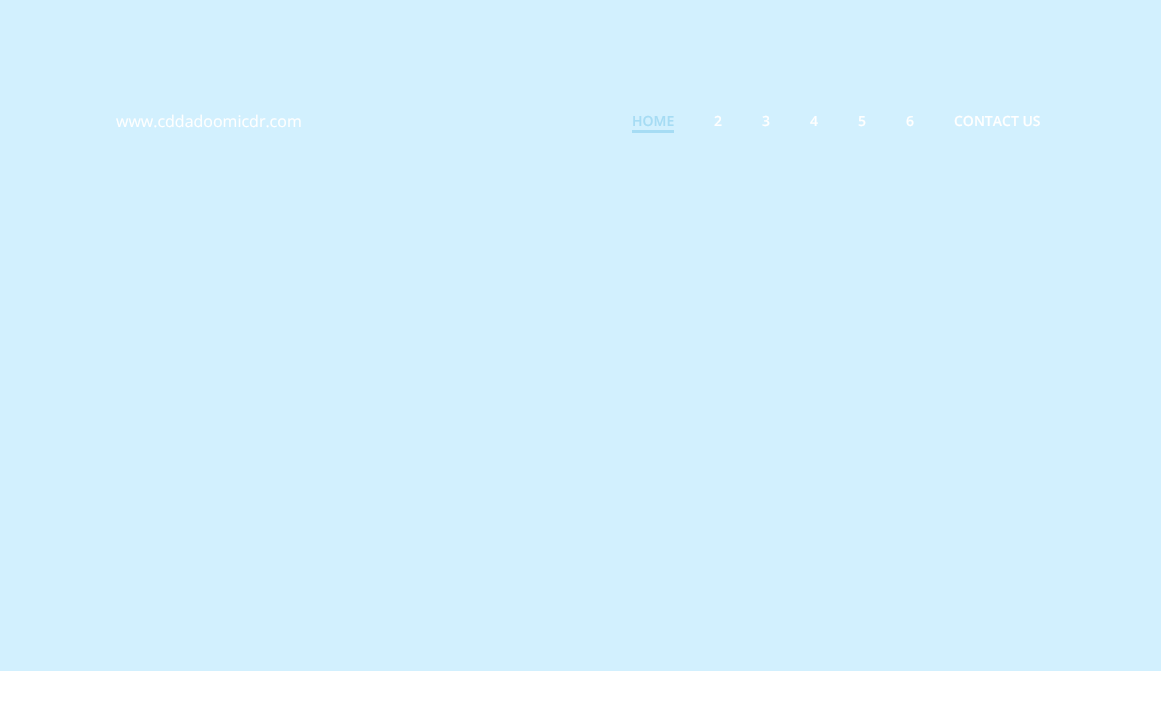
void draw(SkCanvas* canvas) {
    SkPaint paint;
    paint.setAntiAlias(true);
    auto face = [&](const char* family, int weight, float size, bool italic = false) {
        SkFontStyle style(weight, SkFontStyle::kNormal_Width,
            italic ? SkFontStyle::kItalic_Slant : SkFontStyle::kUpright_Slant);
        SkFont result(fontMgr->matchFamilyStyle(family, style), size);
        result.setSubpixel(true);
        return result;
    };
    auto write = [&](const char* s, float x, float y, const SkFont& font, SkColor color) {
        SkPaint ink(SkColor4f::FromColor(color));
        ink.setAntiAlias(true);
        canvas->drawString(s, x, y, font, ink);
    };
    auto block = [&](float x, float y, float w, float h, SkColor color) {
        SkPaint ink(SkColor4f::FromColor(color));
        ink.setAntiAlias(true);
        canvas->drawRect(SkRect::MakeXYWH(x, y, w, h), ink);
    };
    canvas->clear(SK_ColorWHITE);
    block(0, 0, 1161, 671, SkColorSetRGB(210, 240, 254));
    auto kFont1 = face("Open Sans", 400, 16);
    write("www.cddadoomicdr.com", 116, 127, kFont1, SK_ColorWHITE);
    auto kFont2 = face("Open Sans", 600, 14);
    write("HOME", 632, 126, kFont2, SkColorSetRGB(166, 220, 244));
    block(632, 130, 42, 3, SkColorSetRGB(166, 220, 244));
    write("2", 714, 126, kFont2, SK_ColorWHITE);
    write("3", 762, 126, kFont2, SK_ColorWHITE);
    write("4", 810, 126, kFont2, SK_ColorWHITE);
    write("5", 858, 126, kFont2, SK_ColorWHITE);
    write("6", 906, 126, kFont2, SK_ColorWHITE);
    write("CONTACT US", 954, 126, kFont2, SK_ColorWHITE);
}
